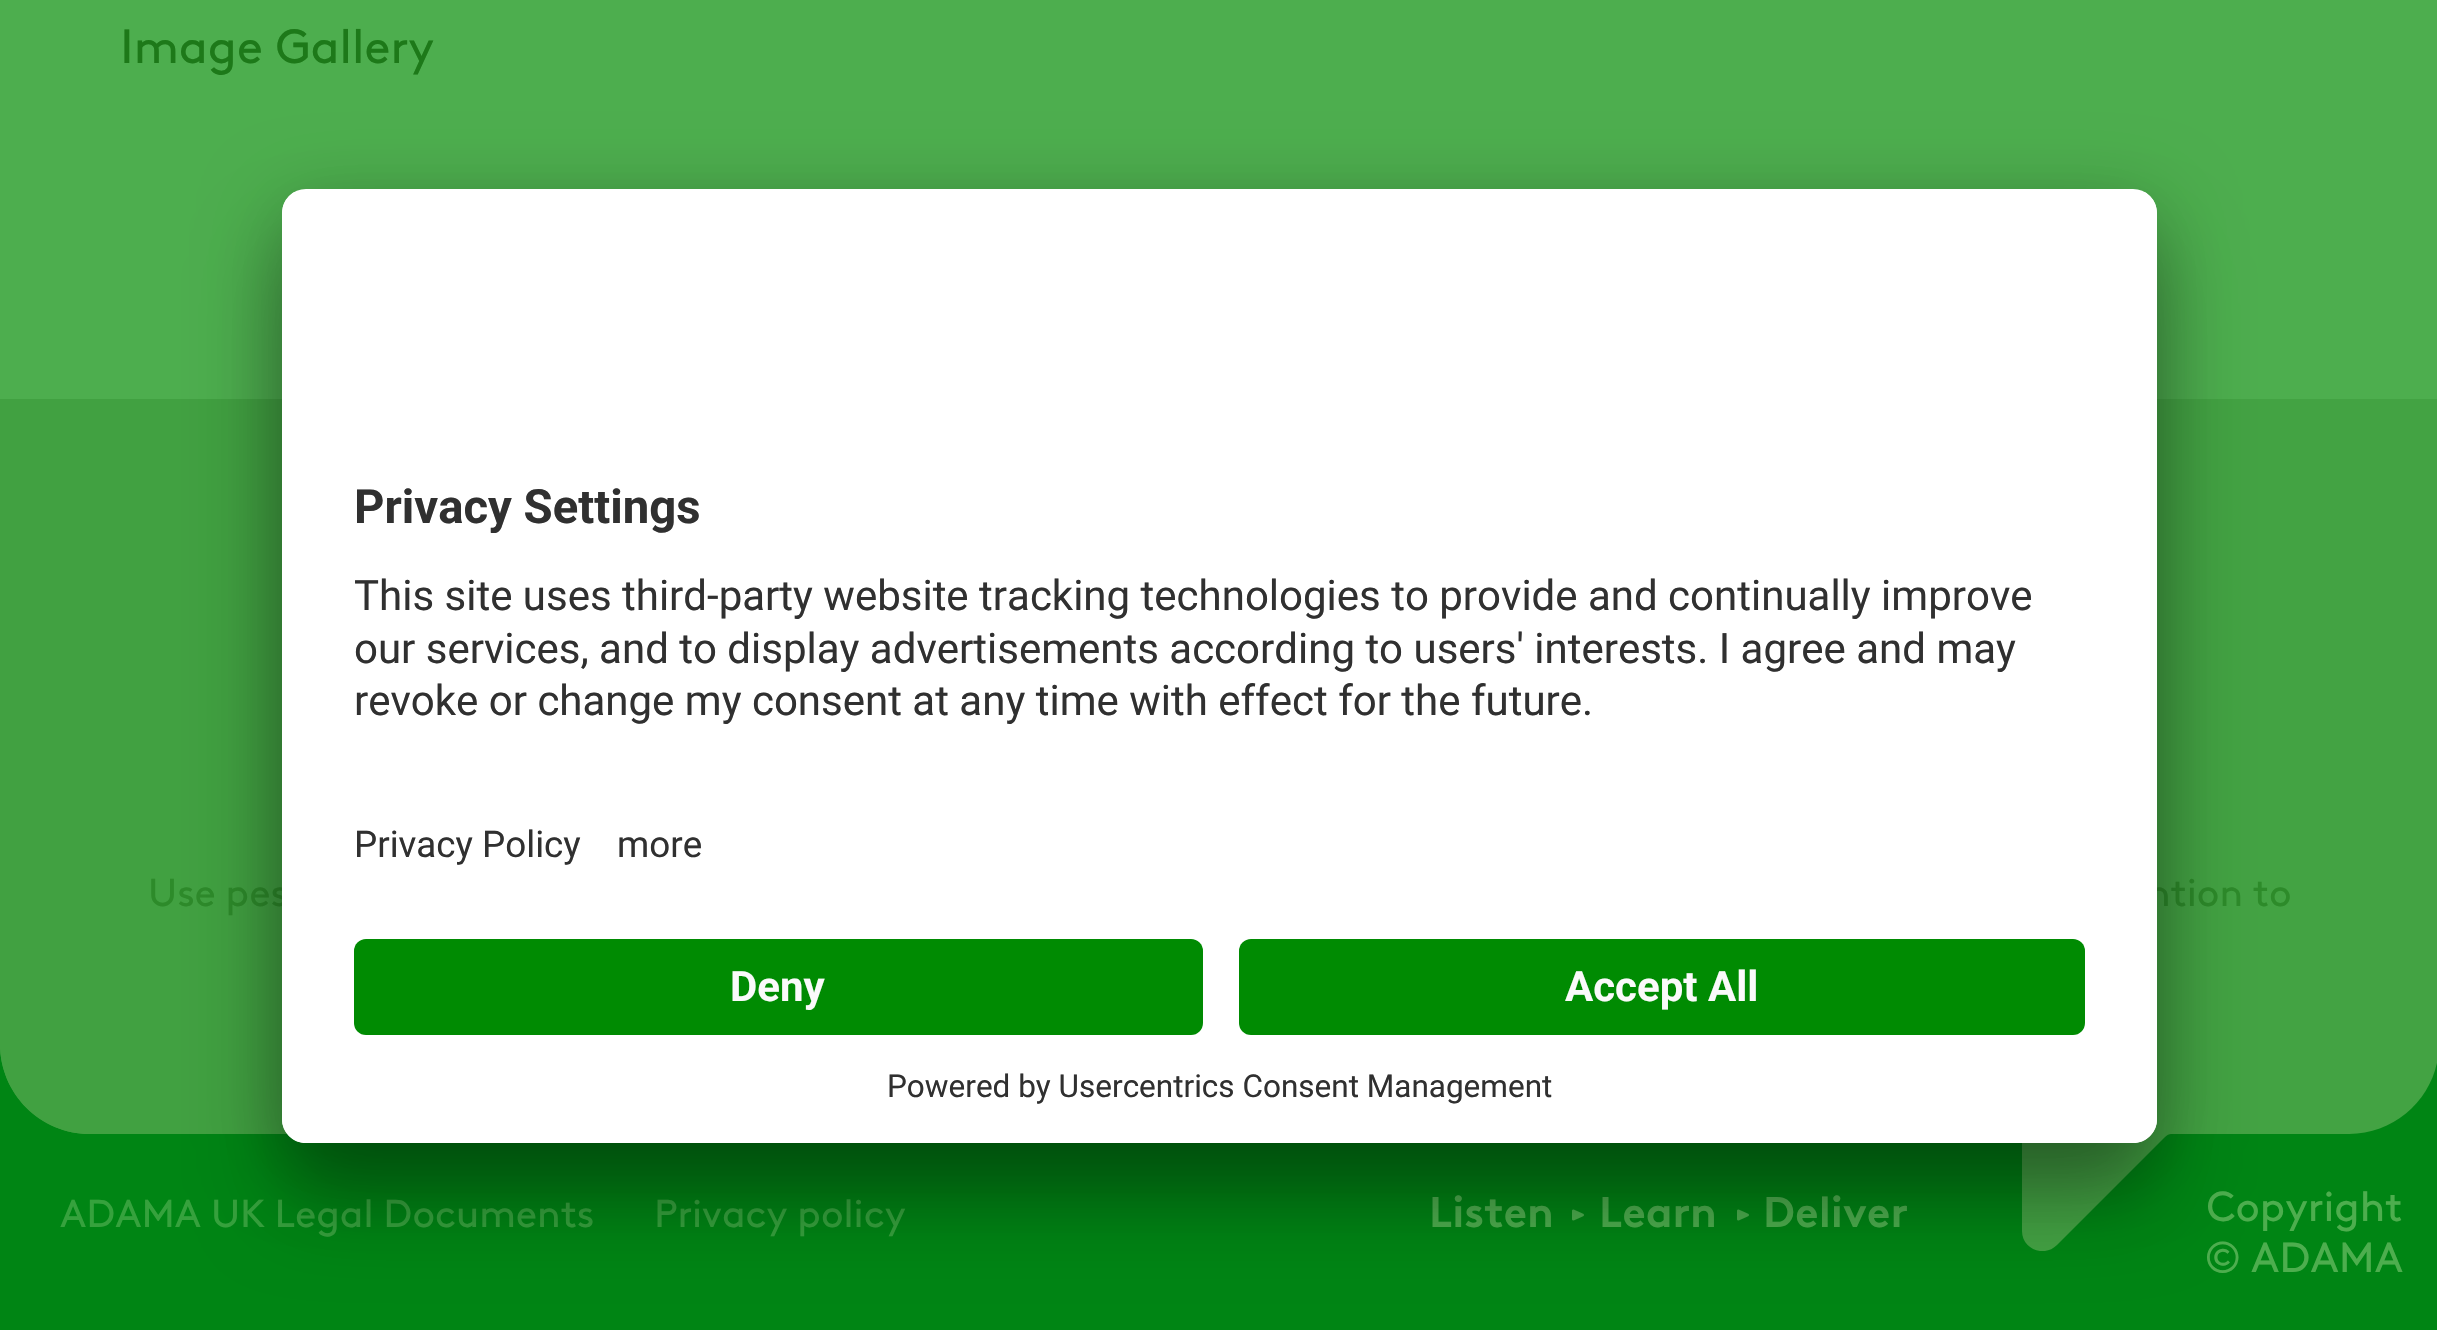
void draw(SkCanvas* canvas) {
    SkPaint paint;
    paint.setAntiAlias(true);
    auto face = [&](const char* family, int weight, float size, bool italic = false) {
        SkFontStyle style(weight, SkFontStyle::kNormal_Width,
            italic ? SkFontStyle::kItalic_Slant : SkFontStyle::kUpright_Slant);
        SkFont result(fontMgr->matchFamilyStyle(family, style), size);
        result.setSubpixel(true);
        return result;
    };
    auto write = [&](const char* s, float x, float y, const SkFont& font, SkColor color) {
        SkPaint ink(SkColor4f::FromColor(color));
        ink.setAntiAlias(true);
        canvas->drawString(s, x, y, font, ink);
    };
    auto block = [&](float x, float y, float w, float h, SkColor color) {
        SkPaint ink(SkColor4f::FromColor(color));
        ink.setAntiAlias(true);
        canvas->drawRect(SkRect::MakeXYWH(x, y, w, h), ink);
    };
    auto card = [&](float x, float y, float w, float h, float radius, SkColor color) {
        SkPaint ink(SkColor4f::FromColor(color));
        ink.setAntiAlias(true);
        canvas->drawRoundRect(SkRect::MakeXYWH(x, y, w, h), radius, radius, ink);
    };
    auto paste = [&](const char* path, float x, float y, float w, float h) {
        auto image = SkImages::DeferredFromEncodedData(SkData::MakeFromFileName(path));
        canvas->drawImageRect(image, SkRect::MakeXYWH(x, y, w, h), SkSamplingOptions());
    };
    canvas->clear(SkColorSetRGB(77, 174, 78));
    auto kFont1 = face("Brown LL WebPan", 400, 48);
    write("Image Gallery", 120, 63, kFont1, SkColorSetRGB(29, 121, 25));
    block(0, 1044, 2437, 286, SkColorSetRGB(0, 133, 20));
    paint.setColor(SkColorSetRGB(67, 163, 67));
    canvas->drawPath(SkPathBuilder().moveTo(0, 399).lineTo(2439, 399).lineTo(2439, 1044).cubicTo(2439, 1093.5f, 2398.5f, 1134, 2349, 1134).lineTo(90, 1134).cubicTo(40.5f, 1134, 0, 1093.5f, 0, 1044).close().detach(), paint);
    paint.setColor(SkColorSetRGB(65, 161, 65));
    canvas->drawPath(SkPathBuilder().moveTo(0, 399).lineTo(0, 1044).cubicTo(0, 1094, 40, 1134, 90, 1134).lineTo(1324, 1134).lineTo(1772, 833).cubicTo(1930, 727, 1988, 556, 1962, 399).close().detach(), paint);
    auto kFont2 = face("Brown LL WebPan", 400, 39);
    write("Use pes", 148, 906, kFont2, SkColorSetRGB(45, 139, 42));
    write("ntion to", 2147, 906, kFont2, SkColorSetRGB(45, 139, 42));
    write("ADAMA UK Legal Documents", 60, 1227, kFont2, SkColorSetRGB(54, 162, 61));
    write("Privacy policy", 654, 1227, kFont2, SkColorSetRGB(54, 162, 61));
    canvas->save();
    canvas->clipRect(SkRect::MakeXYWH(1986, 1116, 186, 135));
    paint.setColor(SkColorSetRGB(67, 163, 67));
    canvas->drawPath(SkPathBuilder().moveTo(2171, 1134).cubicTo(2169, 1134, 2167, 1135, 2165, 1137).lineTo(2057, 1245).cubicTo(2044, 1258, 2022, 1249, 2022, 1231).lineTo(2022, 1120).cubicTo(2022, 1117, 2019, 1116, 2018, 1118).cubicTo(2009, 1127, 2000, 1134, 1986, 1134).lineTo(1986, 1116).lineTo(2171, 1116).close().detach(), paint);
    canvas->restore();
    paste("pic1.png", 1572, 1209, 12, 12);
    auto kFont3 = face("Brown LL WebPan", 700, 43);
    write("Listen", 1429, 1227, kFont3, SkColorSetRGB(77, 174, 78));
    paste("pic1.png", 1737, 1209, 12, 12);
    write("Learn", 1599, 1227, kFont3, SkColorSetRGB(77, 174, 78));
    write("Deliver", 1763, 1227, kFont3, SkColorSetRGB(77, 174, 78));
    auto kFont4 = face("Brown LL WebPan", 400, 42);
    write("Copyright", 2206, 1221, kFont4, SkColorSetRGB(77, 174, 78));
    write("© ADAMA", 2205, 1272, kFont4, SkColorSetRGB(77, 174, 78));
    paint.setColor(SkColorSetARGB(77, 0, 0, 0));
    paint.setMaskFilter(SkMaskFilter::MakeBlur(kNormal_SkBlurStyle, 42));
    canvas->drawRoundRect(SkRect::MakeXYWH(282, 249, 1875, 954), 24, 24, paint);
    paint.setMaskFilter(nullptr);
    paint.setColor(SkColorSetARGB(56, 0, 0, 0));
    paint.setMaskFilter(SkMaskFilter::MakeBlur(kNormal_SkBlurStyle, 39));
    canvas->drawRoundRect(SkRect::MakeXYWH(282, 204, 1875, 954), 24, 24, paint);
    paint.setMaskFilter(nullptr);
    card(282, 189, 1875, 954, 24, SK_ColorWHITE);
    canvas->save();
    canvas->clipPath(SkPathBuilder().moveTo(306, 189).lineTo(2133, 189).cubicTo(2146.5f, 189, 2157, 199.5f, 2157, 213).lineTo(2157, 1119).cubicTo(2157, 1132.5f, 2146.5f, 1143, 2133, 1143).lineTo(306, 1143).cubicTo(292.5f, 1143, 282, 1132.5f, 282, 1119).lineTo(282, 213).cubicTo(282, 199.5f, 292.5f, 189, 306, 189).close().detach(), true);
    canvas->clipPath(SkPathBuilder().moveTo(306, 189).lineTo(2133, 189).cubicTo(2146.5f, 189, 2157, 199.5f, 2157, 213).lineTo(2157, 915).lineTo(282, 915).lineTo(282, 213).cubicTo(282, 199.5f, 292.5f, 189, 306, 189).close().detach(), true);
    block(282, 192, 1875, 723, SK_ColorWHITE);
    canvas->restore();
    auto kFont5 = face("Roboto", 700, 47.25f);
    write("Privacy Settings", 354, 523, kFont5, SkColorSetRGB(48, 48, 48));
    auto kFont6 = face("Roboto", 400, 42);
    write("This site uses third-party website tracking technologies to provide and continually improve", 354, 610, kFont6, SkColorSetRGB(48, 48, 48));
    write("our services, and to display advertisements according to users' interests. I agree and may", 354, 663, kFont6, SkColorSetRGB(48, 48, 48));
    write("revoke or change my consent at any time with effect for the future.", 354, 715, kFont6, SkColorSetRGB(48, 48, 48));
    auto kFont7 = face("Roboto", 400, 36.75f);
    write("Privacy Policy", 354, 857, kFont7, SkColorSetRGB(48, 48, 48));
    write("more", 617, 857, kFont7, SkColorSetRGB(48, 48, 48));
    paint.setColor(SK_ColorWHITE);
    canvas->drawPath(SkPathBuilder().moveTo(282, 915).lineTo(2157, 915).lineTo(2157, 1119).cubicTo(2157, 1132.5f, 2146.5f, 1143, 2133, 1143).lineTo(306, 1143).cubicTo(292.5f, 1143, 282, 1132.5f, 282, 1119).close().detach(), paint);
    card(354, 939, 849, 96, 12, SkColorSetRGB(0, 139, 2));
    auto kFont8 = face("Roboto", 700, 42);
    write("Deny", 730, 1001, kFont8, SkColorSetRGB(250, 250, 250));
    card(1239, 939, 846, 96, 12, SkColorSetRGB(0, 139, 2));
    write("Accept All", 1565, 1001, kFont8, SkColorSetRGB(250, 250, 250));
    auto kFont9 = face("Roboto", 400, 31.5f);
    write("Powered by Usercentrics Consent Management", 887, 1097, kFont9, SkColorSetRGB(48, 48, 48));
}
